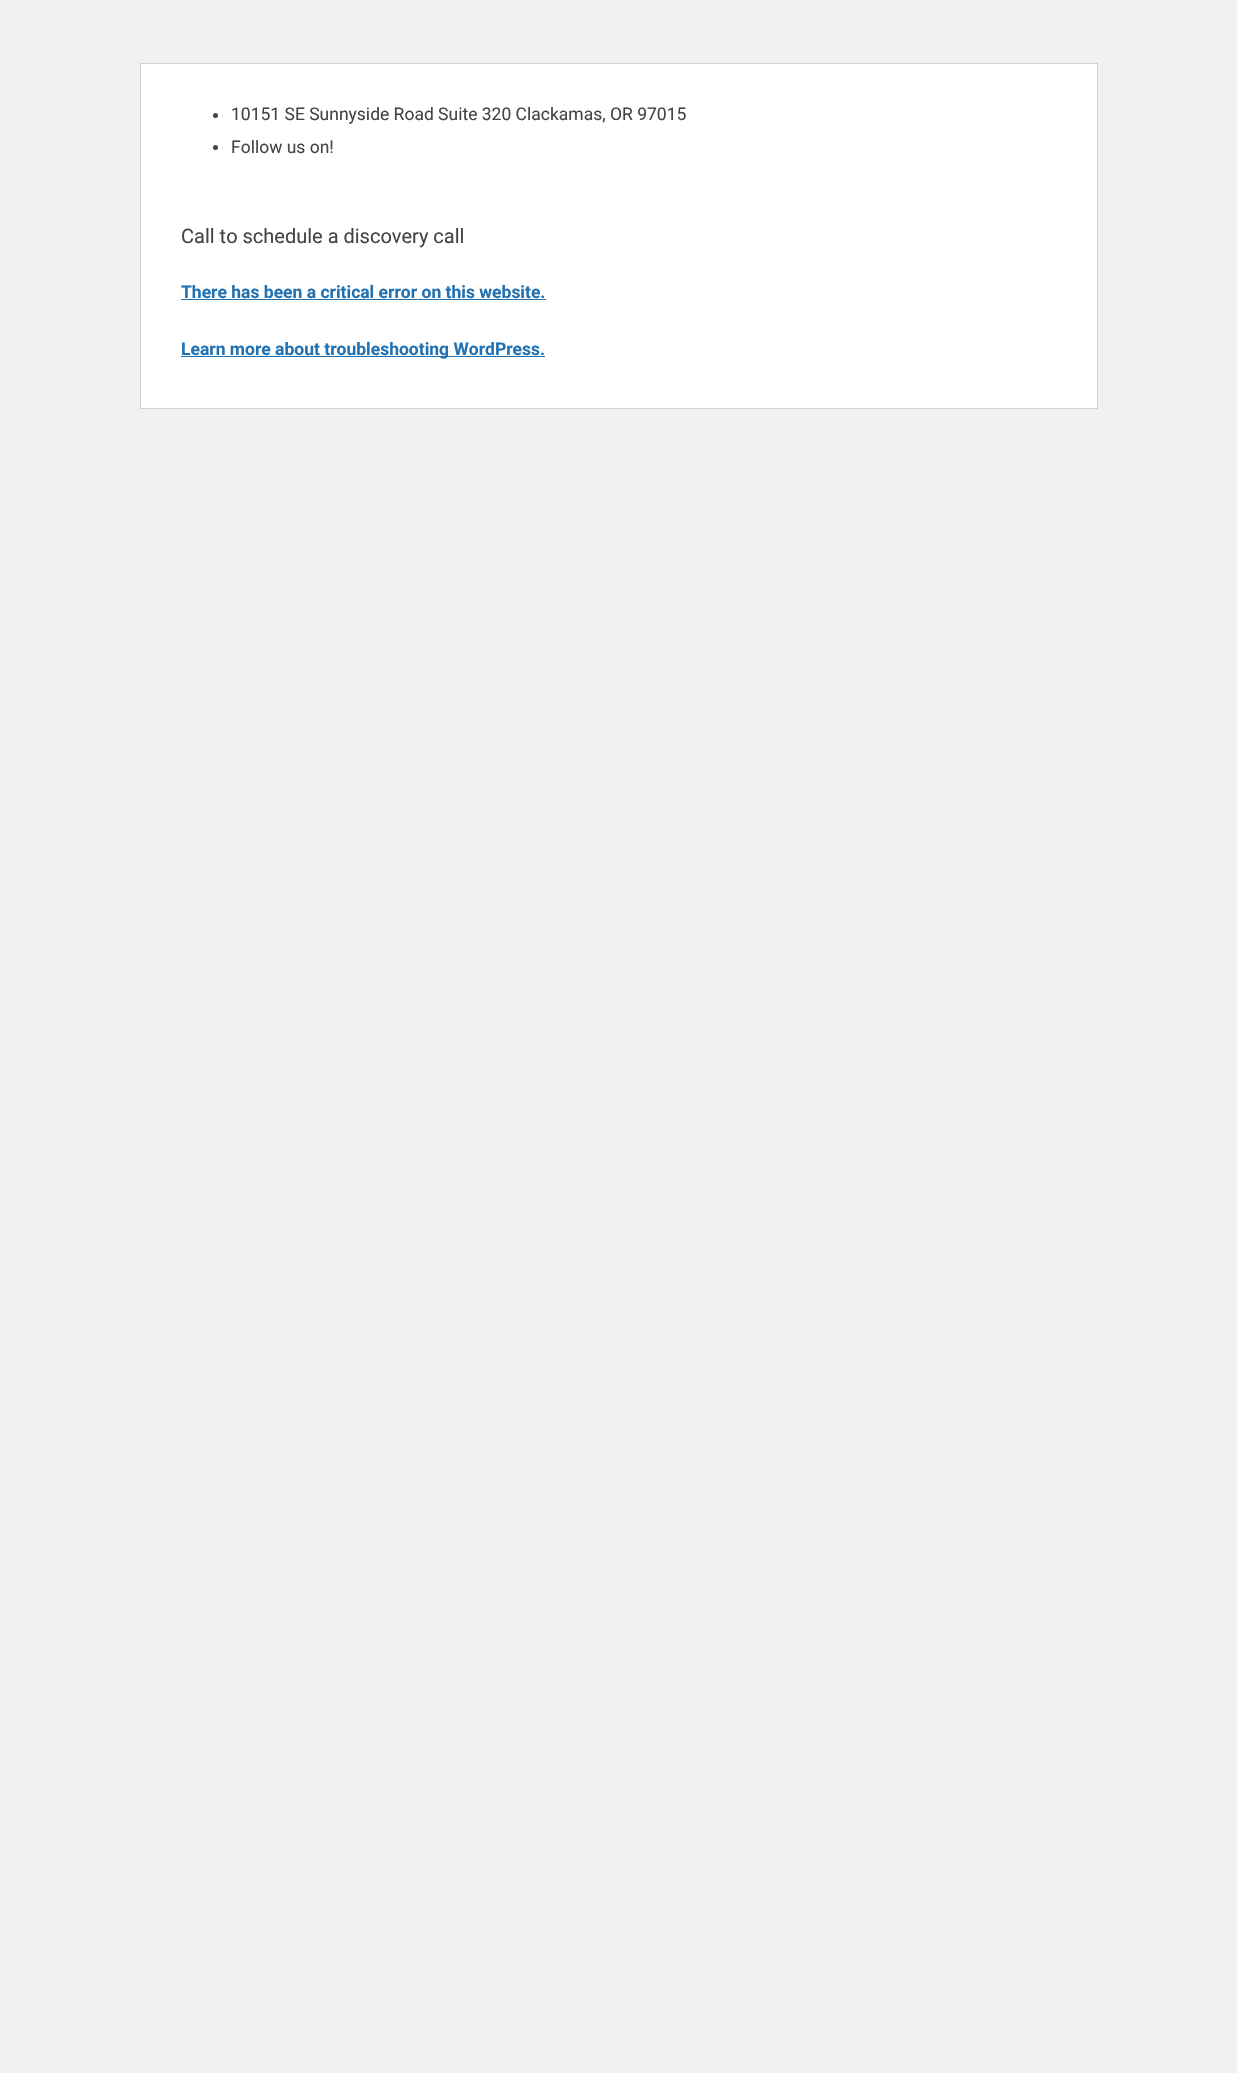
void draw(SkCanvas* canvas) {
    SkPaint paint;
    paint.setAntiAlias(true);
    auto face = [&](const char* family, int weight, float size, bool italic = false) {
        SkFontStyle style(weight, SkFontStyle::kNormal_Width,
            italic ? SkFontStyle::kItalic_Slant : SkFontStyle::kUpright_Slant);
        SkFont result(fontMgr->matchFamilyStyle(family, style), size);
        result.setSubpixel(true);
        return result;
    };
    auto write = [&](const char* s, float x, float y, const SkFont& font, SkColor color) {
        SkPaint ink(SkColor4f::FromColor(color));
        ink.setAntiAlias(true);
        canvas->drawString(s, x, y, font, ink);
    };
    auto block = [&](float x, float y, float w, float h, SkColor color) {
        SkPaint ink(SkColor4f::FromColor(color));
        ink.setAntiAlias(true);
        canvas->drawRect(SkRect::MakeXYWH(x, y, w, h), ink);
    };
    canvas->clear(SkColorSetRGB(241, 241, 241));
    paint.setColor(SK_ColorWHITE);
    canvas->drawRect(SkRect::MakeXYWH(140.5f, 63.5f, 957, 345), paint);
    paint.setStyle(SkPaint::kStroke_Style);
    paint.setStrokeWidth(1);
    paint.setColor(SkColorSetRGB(204, 208, 212));
    canvas->drawRect(SkRect::MakeXYWH(140.5f, 63.5f, 957, 345), paint);
    paint.setStyle(SkPaint::kFill_Style);
    paint.setColor(SkColorSetRGB(68, 68, 68));
    canvas->drawCircle(215.5f, 115.5f, 2.5f, paint);
    auto kFont1 = face("Roboto", 400, 17.5f);
    write("10151 SE Sunnyside Road Suite 320 Clackamas, OR 97015", 231, 120, kFont1, SkColorSetRGB(68, 68, 68));
    canvas->drawCircle(215.5f, 147.5f, 2.5f, paint);
    write("Follow us on!", 231, 153, kFont1, SkColorSetRGB(68, 68, 68));
    auto kFont2 = face("Roboto", 400, 20);
    write("Call to schedule a discovery call", 181, 243, kFont2, SkColorSetRGB(68, 68, 68));
    auto kFont3 = face("Roboto", 700, 17.5f);
    write("There has been a critical error on this website.", 181, 298, kFont3, SkColorSetRGB(34, 113, 177));
    block(181, 299, 365, 1, SkColorSetRGB(34, 113, 177));
    block(181, 356, 364, 1, SkColorSetRGB(34, 113, 177));
    write("Learn more about troubleshooting WordPress.", 181, 355, kFont3, SkColorSetRGB(34, 113, 177));
}
